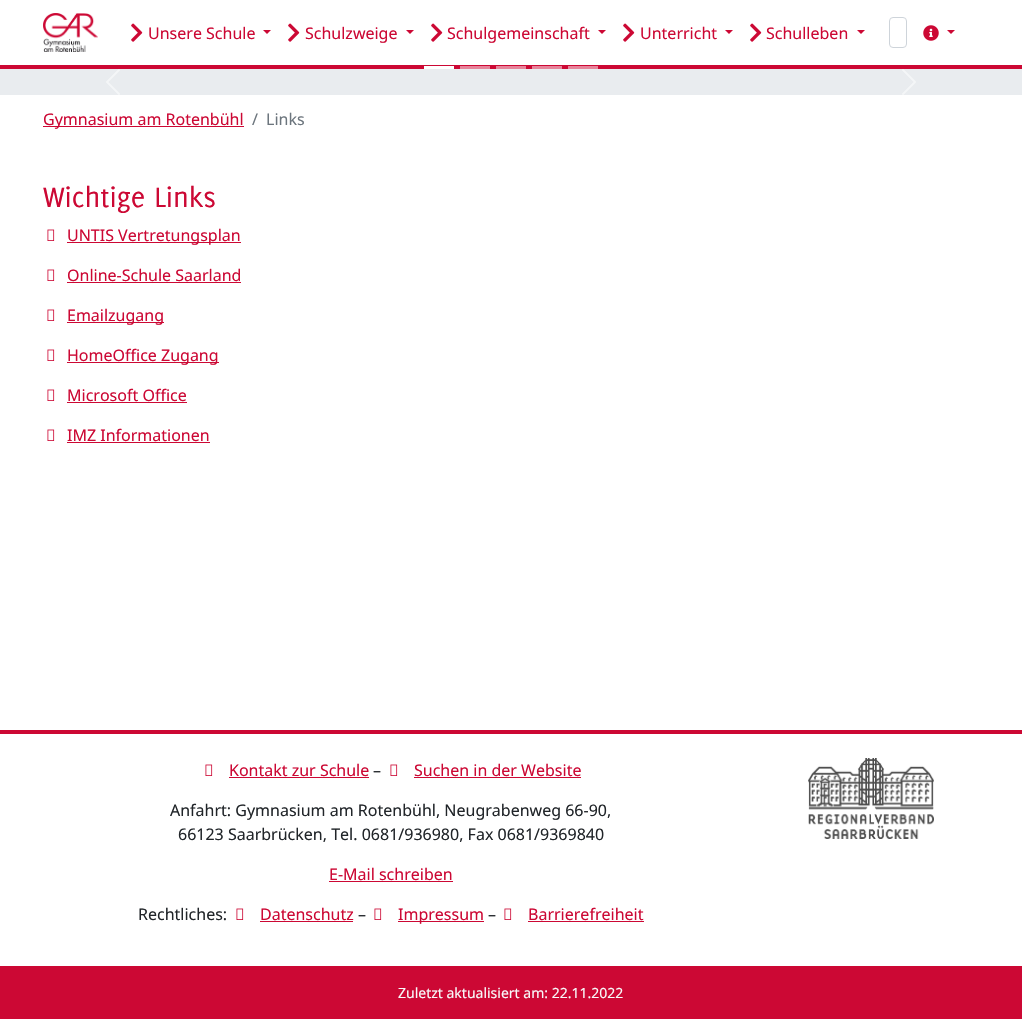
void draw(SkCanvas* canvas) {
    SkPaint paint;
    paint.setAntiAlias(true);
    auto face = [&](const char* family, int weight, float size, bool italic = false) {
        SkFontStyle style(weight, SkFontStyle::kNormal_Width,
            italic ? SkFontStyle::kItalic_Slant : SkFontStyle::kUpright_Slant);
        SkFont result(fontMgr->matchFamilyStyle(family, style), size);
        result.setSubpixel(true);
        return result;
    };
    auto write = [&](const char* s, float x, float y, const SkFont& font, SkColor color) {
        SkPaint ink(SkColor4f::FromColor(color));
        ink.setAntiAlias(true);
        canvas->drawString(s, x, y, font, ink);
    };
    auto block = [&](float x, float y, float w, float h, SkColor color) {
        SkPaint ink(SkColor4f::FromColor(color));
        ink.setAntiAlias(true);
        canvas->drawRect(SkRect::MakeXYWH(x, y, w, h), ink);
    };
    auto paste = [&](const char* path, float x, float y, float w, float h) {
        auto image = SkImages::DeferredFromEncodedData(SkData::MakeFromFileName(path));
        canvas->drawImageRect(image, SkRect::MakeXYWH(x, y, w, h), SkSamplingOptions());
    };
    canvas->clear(SK_ColorWHITE);
    block(0, 65, 1022, 4, SkColorSetRGB(204, 8, 52));
    paste("pic1.png", 43, 13, 55, 39);
    paste("pic2.png", 131, 23, 12, 19);
    auto kFont1 = face("Noto Sans", 400, 16);
    write("Unsere Schule", 148, 39, kFont1, SkColorSetRGB(204, 8, 52));
    paint.setColor(SkColorSetRGB(204, 8, 52));
    canvas->drawPath(SkPathBuilder().moveTo(263, 30).lineTo(271, 30).lineTo(267, 34).close().detach(), paint);
    paste("pic2.png", 288, 23, 12, 19);
    write("Schulzweige", 305, 39, kFont1, SkColorSetRGB(204, 8, 52));
    canvas->drawPath(SkPathBuilder().moveTo(406, 30).lineTo(414, 30).lineTo(410, 34).close().detach(), paint);
    paste("pic2.png", 431, 23, 12, 19);
    write("Schulgemeinschaft", 447, 39, kFont1, SkColorSetRGB(204, 8, 52));
    canvas->drawPath(SkPathBuilder().moveTo(598, 30).lineTo(606, 30).lineTo(602, 34).close().detach(), paint);
    paste("pic2.png", 623, 23, 12, 19);
    write("Unterricht", 640, 39, kFont1, SkColorSetRGB(204, 8, 52));
    canvas->drawPath(SkPathBuilder().moveTo(725, 30).lineTo(733, 30).lineTo(729, 34).close().detach(), paint);
    paste("pic2.png", 750, 23, 12, 19);
    write("Schulleben", 766, 39, kFont1, SkColorSetRGB(204, 8, 52));
    canvas->drawPath(SkPathBuilder().moveTo(857, 30).lineTo(865, 30).lineTo(861, 34).close().detach(), paint);
    paint.setStyle(SkPaint::kStroke_Style);
    paint.setStrokeWidth(1);
    paint.setColor(SkColorSetRGB(206, 212, 218));
    canvas->drawRoundRect(SkRect::MakeXYWH(889.5f, 17.5f, 17, 30), 3.5f, 3.5f, paint);
    paste("pic3.png", 923, 25, 16, 16);
    paint.setStyle(SkPaint::kFill_Style);
    paint.setColor(SkColorSetRGB(204, 8, 52));
    canvas->drawPath(SkPathBuilder().moveTo(947, 30).lineTo(955, 30).lineTo(951, 34).close().detach(), paint);
    block(0, 69, 1022, 26, SkColorSetRGB(233, 236, 239));
    block(424, 66, 30, 3, SK_ColorWHITE);
    block(460, 66, 30, 3, SkColorSetRGB(230, 132, 154));
    block(496, 66, 30, 3, SkColorSetRGB(230, 132, 154));
    block(532, 66, 30, 3, SkColorSetRGB(230, 132, 154));
    block(568, 66, 30, 3, SkColorSetRGB(230, 132, 154));
    paste("pic4.png", 106, 69, 14, 26);
    paste("pic5.png", 902, 69, 14, 26);
    block(43, 126, 201, 1, SkColorSetRGB(204, 8, 52));
    write("Gymnasium am Rotenbühl", 43, 125, kFont1, SkColorSetRGB(204, 8, 52));
    write("/", 252, 125, kFont1, SkColorSetRGB(108, 117, 125));
    write("Links", 266, 125, kFont1, SkColorSetRGB(108, 117, 125));
    auto kFont2 = face("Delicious", 400, 30.5f);
    write("Wichtige Links", 43, 207, kFont2, SkColorSetRGB(204, 8, 52));
    paste("pic6.png", 47, 229, 8, 12);
    block(67, 242, 174, 1, SkColorSetRGB(204, 8, 52));
    write("UNTIS Vertretungsplan", 67, 241, kFont1, SkColorSetRGB(204, 8, 52));
    paste("pic6.png", 47, 269, 8, 12);
    write("Online-Schule Saarland", 67, 281, kFont1, SkColorSetRGB(204, 8, 52));
    block(67, 282, 174, 1, SkColorSetRGB(204, 8, 52));
    paste("pic6.png", 47, 309, 8, 12);
    block(67, 322, 97, 1, SkColorSetRGB(204, 8, 52));
    write("Emailzugang", 67, 321, kFont1, SkColorSetRGB(204, 8, 52));
    paste("pic6.png", 47, 349, 8, 12);
    block(67, 362, 152, 1, SkColorSetRGB(204, 8, 52));
    write("HomeOffice Zugang", 67, 361, kFont1, SkColorSetRGB(204, 8, 52));
    paste("pic6.png", 47, 389, 8, 12);
    write("Microsoft Office", 67, 401, kFont1, SkColorSetRGB(204, 8, 52));
    block(67, 402, 120, 1, SkColorSetRGB(204, 8, 52));
    paste("pic6.png", 47, 429, 8, 12);
    write("IMZ Informationen", 67, 441, kFont1, SkColorSetRGB(204, 8, 52));
    block(67, 442, 143, 1, SkColorSetRGB(204, 8, 52));
    block(0, 966, 1022, 53, SkColorSetRGB(204, 8, 52));
    block(0, 730, 1022, 4, SkColorSetRGB(204, 8, 52));
    paste("pic6.png", 205, 764, 8, 12);
    write("Kontakt zur Schule", 229, 776, kFont1, SkColorSetRGB(204, 8, 52));
    block(229, 777, 140, 1, SkColorSetRGB(204, 8, 52));
    write("–", 373, 776, kFont1, SkColorSetRGB(33, 37, 41));
    paste("pic6.png", 390, 764, 8, 12);
    write("Suchen in der Website", 414, 776, kFont1, SkColorSetRGB(204, 8, 52));
    block(414, 777, 167, 1, SkColorSetRGB(204, 8, 52));
    write("Anfahrt: Gymnasium am Rotenbühl, Neugrabenweg 66-90,", 170, 816, kFont1, SkColorSetRGB(33, 37, 41));
    write("66123 Saarbrücken, Tel. 0681/936980, Fax 0681/9369840", 178, 840, kFont1, SkColorSetRGB(33, 37, 41));
    write("E-Mail schreiben", 329, 880, kFont1, SkColorSetRGB(204, 8, 52));
    block(329, 881, 124, 1, SkColorSetRGB(204, 8, 52));
    write("Rechtliches:", 138, 920, kFont1, SkColorSetRGB(33, 37, 41));
    paste("pic6.png", 236, 908, 8, 12);
    write("Datenschutz", 260, 920, kFont1, SkColorSetRGB(204, 8, 52));
    block(260, 921, 93, 1, SkColorSetRGB(204, 8, 52));
    write("–", 358, 920, kFont1, SkColorSetRGB(33, 37, 41));
    paste("pic6.png", 374, 908, 8, 12);
    block(398, 921, 86, 1, SkColorSetRGB(204, 8, 52));
    write("Impressum", 398, 920, kFont1, SkColorSetRGB(204, 8, 52));
    write("–", 488, 920, kFont1, SkColorSetRGB(33, 37, 41));
    paste("pic6.png", 504, 908, 8, 12);
    write("Barrierefreiheit", 528, 920, kFont1, SkColorSetRGB(204, 8, 52));
    block(528, 921, 116, 1, SkColorSetRGB(204, 8, 52));
    paste("pic7.png", 808, 758, 126, 81);
    auto kFont3 = face("Noto Sans", 400, 14);
    write("Zuletzt aktualisiert am: 22.11.2022", 398, 998, kFont3, SkColorSetRGB(248, 249, 250));
}
